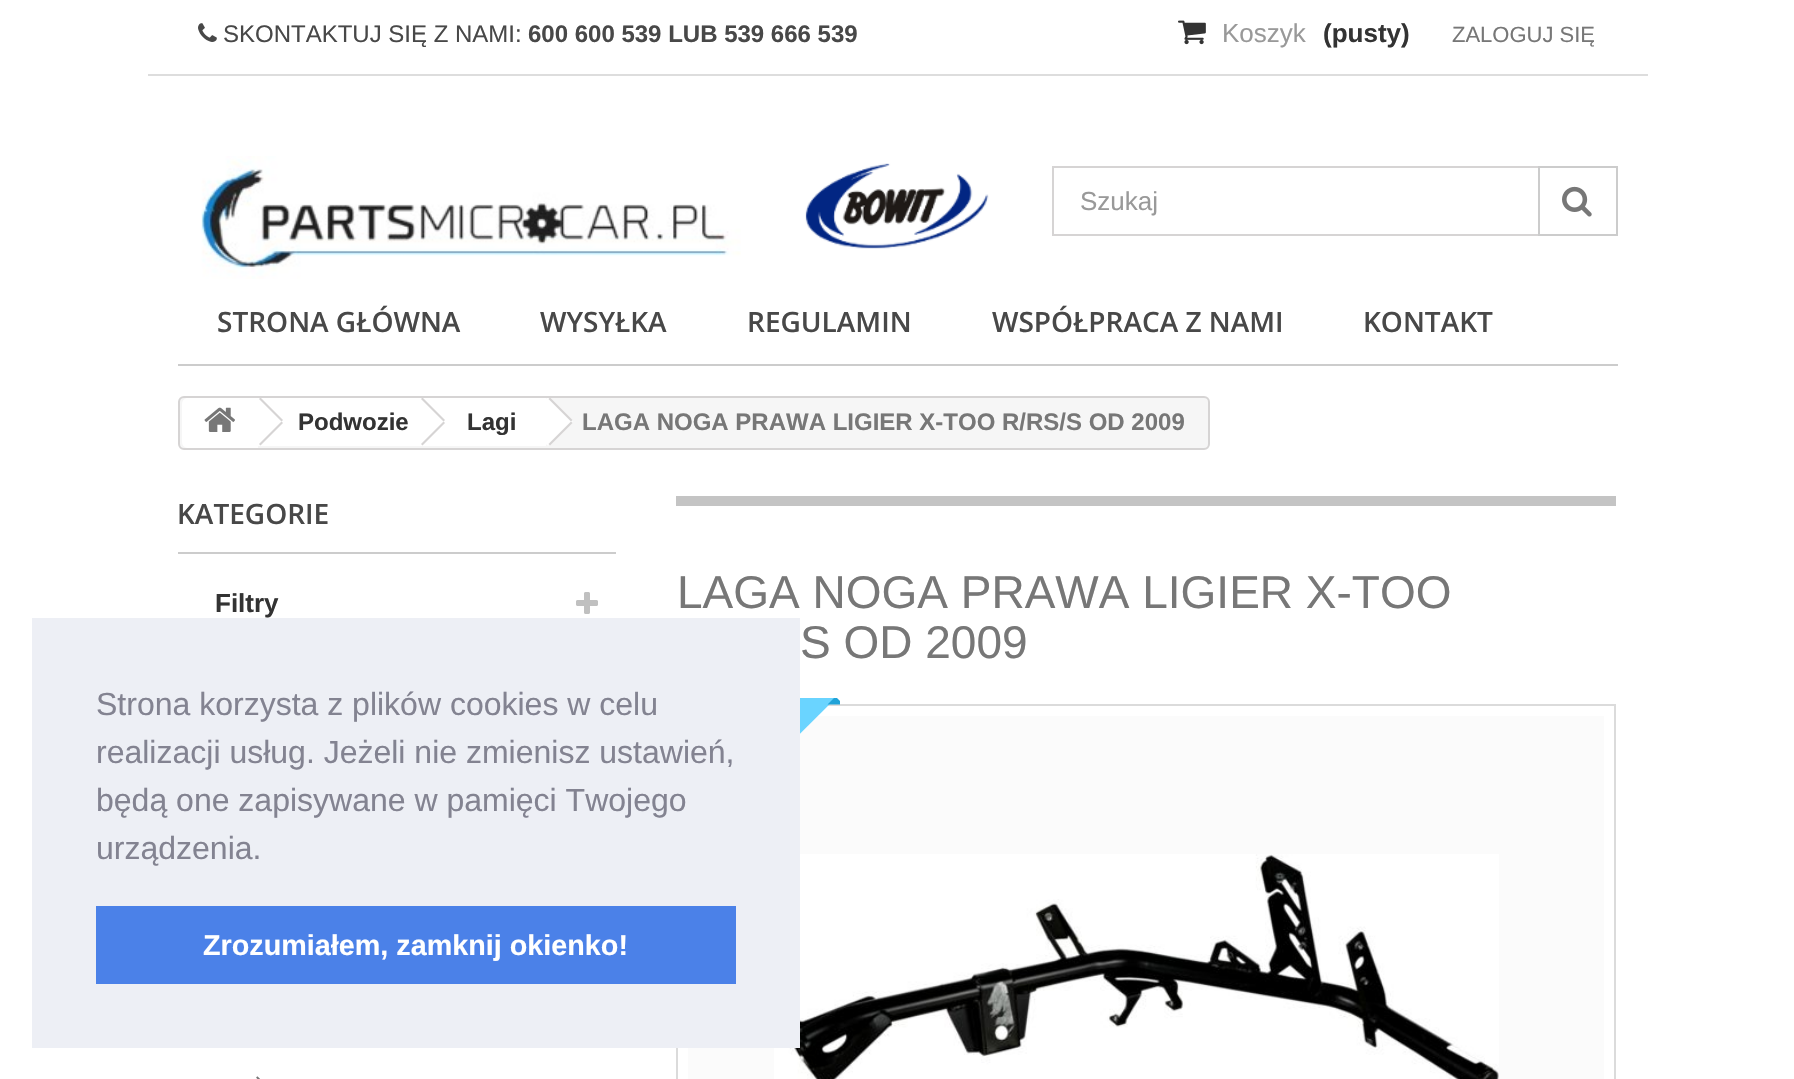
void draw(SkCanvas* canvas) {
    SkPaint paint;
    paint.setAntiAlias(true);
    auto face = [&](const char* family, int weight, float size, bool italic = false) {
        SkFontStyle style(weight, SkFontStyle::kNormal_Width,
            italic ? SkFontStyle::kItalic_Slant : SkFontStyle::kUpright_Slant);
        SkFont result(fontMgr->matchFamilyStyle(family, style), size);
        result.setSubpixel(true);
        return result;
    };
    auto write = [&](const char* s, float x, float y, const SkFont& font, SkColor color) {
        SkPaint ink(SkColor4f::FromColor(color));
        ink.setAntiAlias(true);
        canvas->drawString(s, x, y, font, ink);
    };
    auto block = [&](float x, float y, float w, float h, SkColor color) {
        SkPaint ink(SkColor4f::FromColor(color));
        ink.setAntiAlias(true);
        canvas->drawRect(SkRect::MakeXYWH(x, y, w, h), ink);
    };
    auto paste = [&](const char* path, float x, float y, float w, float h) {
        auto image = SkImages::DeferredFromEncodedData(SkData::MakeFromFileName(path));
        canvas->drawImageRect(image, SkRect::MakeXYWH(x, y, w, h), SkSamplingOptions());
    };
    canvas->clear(SK_ColorWHITE);
    block(148, 74, 1500, 2, SkColorSetRGB(221, 221, 221));
    paste("pic1.png", 198, 23, 19, 19);
    auto kFont1 = face("Liberation Sans", 400, 24);
    write("SKONTAKTUJ SIĘ Z NAMI:", 223, 42, kFont1, SkColorSetRGB(72, 72, 72));
    auto kFont2 = face("Liberation Sans", 700, 24);
    write("600 600 539 LUB 539 666 539", 528, 42, kFont2, SkColorSetRGB(72, 72, 72));
    paste("pic2.png", 1178, 20, 28, 25);
    auto kFont3 = face("Liberation Sans", 400, 26);
    write("Koszyk", 1222, 42, kFont3, SkColorSetRGB(153, 153, 153));
    auto kFont4 = face("Liberation Sans", 700, 26);
    write("(pusty)", 1323, 42, kFont4, SkColorSetRGB(51, 51, 51));
    auto kFont5 = face("Liberation Sans", 400, 22);
    write("ZALOGUJ SIĘ", 1452, 42, kFont5, SkColorSetRGB(119, 119, 119));
    paste("pic3.png", 201, 156, 540, 123);
    paste("pic4.png", 805, 163, 184, 86);
    paint.setStyle(SkPaint::kStroke_Style);
    paint.setStrokeWidth(2);
    paint.setColor(SkColorSetRGB(214, 212, 212));
    canvas->drawRect(SkRect::MakeXYWH(1053, 167, 564, 68), paint);
    write("Szukaj", 1080, 210, kFont3, SkColorSetRGB(153, 153, 153));
    paint.setColor(SkColorSetRGB(204, 204, 204));
    canvas->drawRect(SkRect::MakeXYWH(1539, 167, 78, 68), paint);
    paste("pic5.png", 1562, 186, 30, 31);
    block(178, 364, 1440, 2, SkColorSetRGB(204, 204, 204));
    auto kFont6 = face("Open Sans", 600, 28);
    write("STRONA GŁÓWNA", 217, 332, kFont6, SkColorSetRGB(72, 72, 72));
    write("WYSYŁKA", 540, 332, kFont6, SkColorSetRGB(72, 72, 72));
    write("REGULAMIN", 747, 332, kFont6, SkColorSetRGB(72, 72, 72));
    write("WSPÓŁPRACA Z NAMI", 992, 332, kFont6, SkColorSetRGB(72, 72, 72));
    write("KONTAKT", 1363, 332, kFont6, SkColorSetRGB(72, 72, 72));
    paint.setStyle(SkPaint::kFill_Style);
    paint.setColor(SkColorSetRGB(246, 246, 246));
    canvas->drawRoundRect(SkRect::MakeXYWH(179, 397, 1030, 52), 5, 5, paint);
    paint.setStyle(SkPaint::kStroke_Style);
    paint.setColor(SkColorSetRGB(214, 212, 212));
    canvas->drawRoundRect(SkRect::MakeXYWH(179, 397, 1030, 52), 5, 5, paint);
    paint.setStyle(SkPaint::kFill_Style);
    paint.setColor(SK_ColorWHITE);
    canvas->drawPath(SkPathBuilder().moveTo(188, 398).lineTo(258, 398).lineTo(258, 448).lineTo(188, 448).cubicTo(184.5f, 448, 182, 445.5f, 182, 442).lineTo(182, 404).cubicTo(182, 400.5f, 184.5f, 398, 188, 398).close().detach(), paint);
    paste("pic6.png", 204, 407, 31, 25);
    block(258, 398, 166, 48, SK_ColorWHITE);
    paint.setColor(SkColorSetRGB(214, 212, 212));
    canvas->drawPath(SkPathBuilder().moveTo(260.5f, 397.5f).lineTo(283, 420).lineTo(281.5f, 421.5f).lineTo(259, 399).close().detach(), paint);
    canvas->drawPath(SkPathBuilder().moveTo(281.5f, 421.5f).lineTo(283, 423).lineTo(260.5f, 445.5f).lineTo(259, 444).close().detach(), paint);
    write("Podwozie", 298, 430, kFont2, SkColorSetRGB(51, 51, 51));
    paint.setColor(SK_ColorWHITE);
    canvas->drawPath(SkPathBuilder().moveTo(444, 399).lineTo(443, 398).lineTo(439, 398).lineTo(418, 419).cubicTo(416, 423, 419, 425, 421, 427).lineTo(435, 441).cubicTo(441, 447, 441, 447, 447, 441).lineTo(457, 431).cubicTo(459, 429, 468, 423, 464, 419).close().detach(), paint);
    block(424, 398, 122, 48, SK_ColorWHITE);
    paint.setColor(SkColorSetRGB(214, 212, 212));
    canvas->drawPath(SkPathBuilder().moveTo(422.5f, 397.5f).lineTo(445, 420).lineTo(443.5f, 421.5f).lineTo(421, 399).close().detach(), paint);
    canvas->drawPath(SkPathBuilder().moveTo(443.5f, 421.5f).lineTo(445, 423).lineTo(422.5f, 445.5f).lineTo(421, 444).close().detach(), paint);
    write("Lagi", 467, 430, kFont2, SkColorSetRGB(51, 51, 51));
    paint.setColor(SK_ColorWHITE);
    canvas->drawPath(SkPathBuilder().moveTo(551, 399).lineTo(550, 398).lineTo(547, 398).lineTo(525, 419).cubicTo(522, 422, 528, 426, 529, 427).lineTo(546, 444).cubicTo(549, 448, 552, 443, 554, 441).lineTo(568, 427).cubicTo(569, 426, 576, 421, 571, 419).close().detach(), paint);
    paint.setColor(SkColorSetRGB(214, 212, 212));
    canvas->drawPath(SkPathBuilder().moveTo(550, 397.5f).lineTo(572.5f, 420).lineTo(571, 421.5f).lineTo(548.5f, 399).close().detach(), paint);
    canvas->drawPath(SkPathBuilder().moveTo(571, 421.5f).lineTo(572.5f, 423).lineTo(550, 445.5f).lineTo(548.5f, 444).close().detach(), paint);
    write("LAGA NOGA PRAWA LIGIER X-TOO R/RS/S OD 2009", 582, 430, kFont2, SkColorSetRGB(119, 119, 119));
    block(178, 552, 438, 2, SkColorSetRGB(204, 204, 204));
    write("KATEGORIE", 177, 524, kFont6, SkColorSetRGB(72, 72, 72));
    write("Filtry", 215, 612, kFont4, SkColorSetRGB(51, 51, 51));
    paste("pic7.png", 576, 592, 22, 22);
    paste("pic8.png", 256, 1076, 4, 3);
    block(676, 496, 940, 10, SkColorSetRGB(196, 196, 196));
    auto kFont7 = face("Liberation Sans", 400, 46);
    write("LAGA NOGA PRAWA LIGIER X-TOO", 677, 608, kFont7, SkColorSetRGB(119, 119, 119));
    write("S OD 2009", 800, 658, kFont7, SkColorSetRGB(119, 119, 119));
    paint.setStyle(SkPaint::kStroke_Style);
    paint.setColor(SkColorSetRGB(219, 219, 219));
    canvas->drawRect(SkRect::MakeXYWH(677, 705, 938, 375), paint);
    block(688, 716, 916, 363, SkColorSetRGB(251, 251, 251));
    paste("pic9.png", 774, 854, 725, 225);
    canvas->save();
    canvas->clipRect(SkRect::MakeXYWH(670, 698, 170, 170));
    paint.setStyle(SkPaint::kFill_Style);
    paint.setColor(SkColorSetRGB(106, 212, 255));
    canvas->drawPath(SkPathBuilder().moveTo(623, 831).lineTo(807, 647).lineTo(847, 687).lineTo(663, 870).close().detach(), paint);
    paint.setColor(SkColorSetRGB(33, 163, 216));
    canvas->drawPath(SkPathBuilder().moveTo(843.5f, 704.5f).lineTo(827.5f, 704.5f).lineTo(835.5f, 696.5f).close().detach(), paint);
    canvas->restore();
    block(32, 618, 768, 430, SkColorSetRGB(237, 239, 245));
    auto kFont8 = face("Liberation Sans", 400, 32);
    write("Strona korzysta z plików cookies w celu", 96, 715, kFont8, SkColorSetRGB(131, 131, 145));
    write("realizacji usług. Jeżeli nie zmienisz ustawień,", 96, 763, kFont8, SkColorSetRGB(131, 131, 145));
    write("będą one zapisywane w pamięci Twojego", 96, 811, kFont8, SkColorSetRGB(131, 131, 145));
    write("urządzenia.", 96, 859, kFont8, SkColorSetRGB(131, 131, 145));
    block(96, 906, 640, 78, SkColorSetRGB(75, 129, 232));
    auto kFont9 = face("Liberation Sans", 700, 28.75f);
    write("Zrozumiałem, zamknij okienko!", 203, 955, kFont9, SK_ColorWHITE);
}
